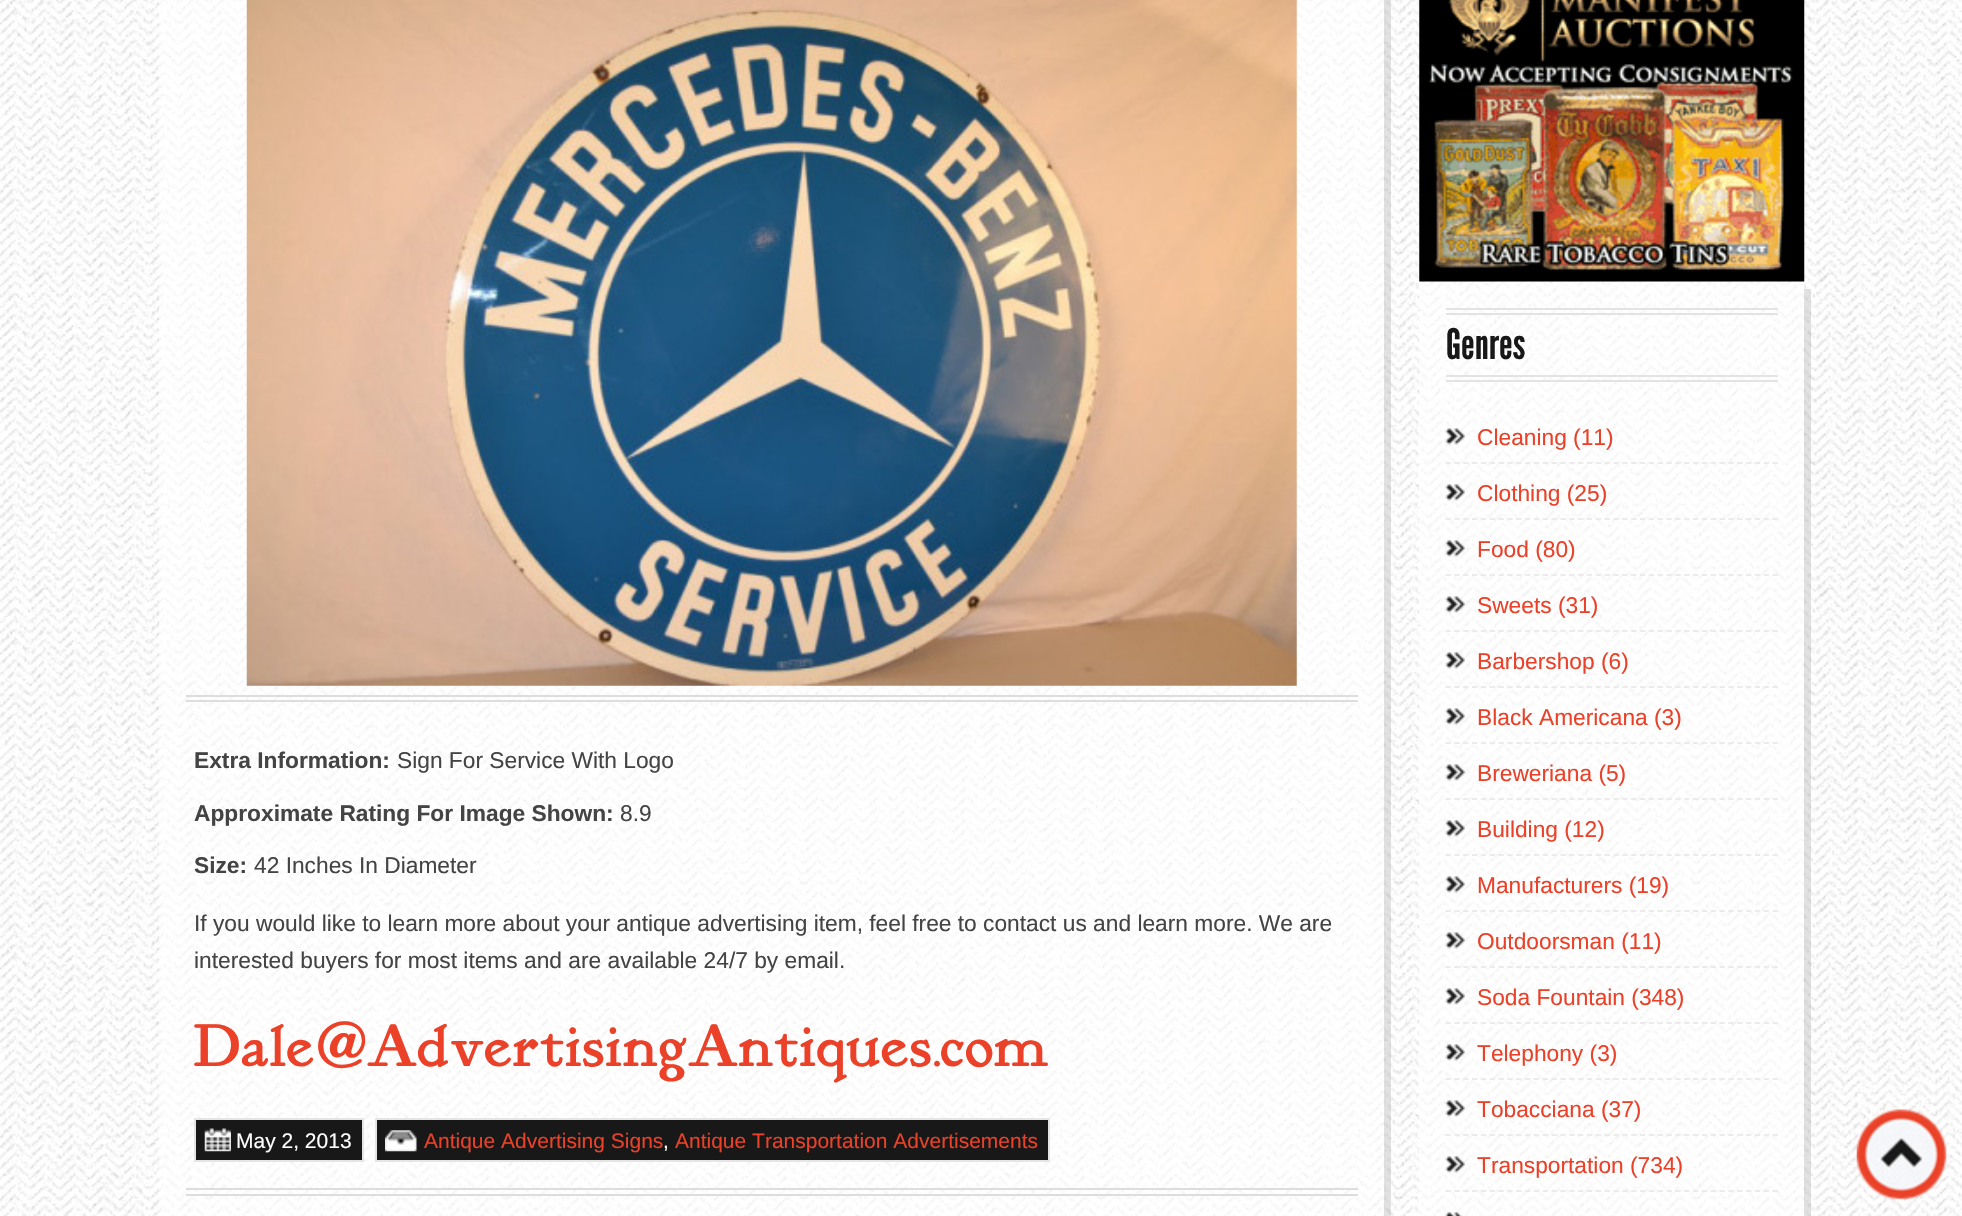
void draw(SkCanvas* canvas) {
    SkPaint paint;
    paint.setAntiAlias(true);
    auto face = [&](const char* family, int weight, float size, bool italic = false) {
        SkFontStyle style(weight, SkFontStyle::kNormal_Width,
            italic ? SkFontStyle::kItalic_Slant : SkFontStyle::kUpright_Slant);
        SkFont result(fontMgr->matchFamilyStyle(family, style), size);
        result.setSubpixel(true);
        return result;
    };
    auto write = [&](const char* s, float x, float y, const SkFont& font, SkColor color) {
        SkPaint ink(SkColor4f::FromColor(color));
        ink.setAntiAlias(true);
        canvas->drawString(s, x, y, font, ink);
    };
    auto block = [&](float x, float y, float w, float h, SkColor color) {
        SkPaint ink(SkColor4f::FromColor(color));
        ink.setAntiAlias(true);
        canvas->drawRect(SkRect::MakeXYWH(x, y, w, h), ink);
    };
    auto paste = [&](const char* path, float x, float y, float w, float h) {
        auto image = SkImages::DeferredFromEncodedData(SkData::MakeFromFileName(path));
        canvas->drawImageRect(image, SkRect::MakeXYWH(x, y, w, h), SkSamplingOptions());
    };
    canvas->clear(SK_ColorWHITE);
    paste("pic1.png", 0, 0, 1962, 1216);
    paint.setColor(SkColorSetARGB(77, 158, 158, 158));
    canvas->drawPath(SkPathBuilder().moveTo(166, 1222).lineTo(166, 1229).lineTo(1391, 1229).lineTo(1391, -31).lineTo(1384, -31).lineTo(1384, 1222).close().detach(), paint);
    block(159, 0, 1225, 1216, SkColorSetARGB(153, 255, 255, 255));
    paste("pic2.png", 246, 0, 1051, 686);
    block(186, 695, 1172, 2, SkColorSetRGB(221, 221, 221));
    block(186, 700, 1172, 2, SkColorSetRGB(221, 221, 221));
    block(186, 1188, 1172, 2, SkColorSetRGB(221, 221, 221));
    block(186, 1194, 1172, 2, SkColorSetRGB(221, 221, 221));
    auto kFont1 = face("Liberation Sans", 700, 22.75f);
    write("Extra Information:", 194, 768, kFont1, SkColorSetRGB(68, 68, 68));
    auto kFont2 = face("Liberation Sans", 400, 22.75f);
    write("Sign For Service With Logo", 397, 768, kFont2, SkColorSetRGB(68, 68, 68));
    write("Approximate Rating For Image Shown:", 194, 821, kFont1, SkColorSetRGB(68, 68, 68));
    write("8.9", 620, 821, kFont2, SkColorSetRGB(68, 68, 68));
    write("Size:", 194, 873, kFont1, SkColorSetRGB(68, 68, 68));
    write("42 Inches In Diameter", 254, 873, kFont2, SkColorSetRGB(68, 68, 68));
    write("If you would like to learn more about your antique advertising item, feel free to contact us and learn more. We are", 194, 931, kFont2, SkColorSetRGB(68, 68, 68));
    write("interested buyers for most items and are available 24/7 by email.", 194, 968, kFont2, SkColorSetRGB(68, 68, 68));
    auto kFont3 = face("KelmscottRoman", 400, 61.25f);
    write("Dale@AdvertisingAntiques.com", 194, 1066, kFont3, SkColorSetRGB(234, 65, 40));
    block(196, 1120, 166, 40, SkColorSetRGB(24, 24, 24));
    paste("pic3.png", 204, 1128, 27, 24);
    paint.setStyle(SkPaint::kStroke_Style);
    paint.setStrokeWidth(2);
    paint.setColor(SkColorSetRGB(229, 229, 229));
    canvas->drawRect(SkRect::MakeXYWH(195, 1119, 168, 42), paint);
    auto kFont4 = face("Liberation Sans", 400, 21);
    write("May 2, 2013", 236, 1148, kFont4, SK_ColorWHITE);
    block(377, 1120, 671, 40, SkColorSetRGB(24, 24, 24));
    paste("pic4.png", 385, 1130, 32, 22);
    canvas->drawRect(SkRect::MakeXYWH(376, 1119, 673, 42), paint);
    write("Antique Advertising Signs", 424, 1148, kFont4, SkColorSetRGB(234, 65, 40));
    write(",", 663, 1148, kFont4, SK_ColorWHITE);
    write("Antique Transportation Advertisements", 675, 1148, kFont4, SkColorSetRGB(234, 65, 40));
    paste("pic5.png", 1419, 0, 386, 282);
    paint.setStyle(SkPaint::kFill_Style);
    paint.setColor(SkColorSetARGB(77, 158, 158, 158));
    canvas->drawPath(SkPathBuilder().moveTo(1426, 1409).lineTo(1426, 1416).lineTo(1811, 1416).lineTo(1811, 289).lineTo(1804, 289).lineTo(1804, 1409).close().detach(), paint);
    block(1419, 282, 385, 934, SkColorSetARGB(153, 255, 255, 255));
    block(1446, 308, 332, 2, SkColorSetRGB(227, 227, 227));
    block(1446, 313, 332, 2, SkColorSetRGB(227, 227, 227));
    block(1446, 375, 332, 2, SkColorSetRGB(227, 227, 227));
    block(1446, 380, 332, 2, SkColorSetRGB(227, 227, 227));
    auto kFont5 = face("League Gothic", 400, 42);
    write("Genres", 1446, 359, kFont5, SkColorSetRGB(24, 24, 24));
    paste("pic6.png", 1445, 428, 20, 17);
    paint.setStyle(SkPaint::kStroke_Style);
    paint.setStrokeWidth(1.8f);
    paint.setColor(SkColorSetRGB(235, 235, 235));
    paint.setPathEffect(SkDashPathEffect::Make({{5.25f, 3.59f}}, 0));
    canvas->drawPath(SkPathBuilder().moveTo(1445.5f, 463).lineTo(1778, 463).detach(), paint);
    paint.setPathEffect(nullptr);
    write("Cleaning (11)", 1477, 445, kFont2, SkColorSetRGB(234, 65, 40));
    paste("pic7.png", 1445, 484, 20, 17);
    paint.setPathEffect(SkDashPathEffect::Make({{5.25f, 3.59f}}, 0));
    canvas->drawPath(SkPathBuilder().moveTo(1445.5f, 519).lineTo(1778, 519).detach(), paint);
    paint.setPathEffect(nullptr);
    write("Clothing (25)", 1477, 501, kFont2, SkColorSetRGB(234, 65, 40));
    paste("pic8.png", 1445, 540, 20, 17);
    paint.setPathEffect(SkDashPathEffect::Make({{5.25f, 3.59f}}, 0));
    canvas->drawPath(SkPathBuilder().moveTo(1445.5f, 575).lineTo(1778, 575).detach(), paint);
    paint.setPathEffect(nullptr);
    write("Food (80)", 1477, 557, kFont2, SkColorSetRGB(234, 65, 40));
    paste("pic9.png", 1445, 596, 20, 17);
    paint.setPathEffect(SkDashPathEffect::Make({{5.25f, 3.59f}}, 0));
    canvas->drawPath(SkPathBuilder().moveTo(1445.5f, 631).lineTo(1778, 631).detach(), paint);
    paint.setPathEffect(nullptr);
    write("Sweets (31)", 1477, 613, kFont2, SkColorSetRGB(234, 65, 40));
    paste("pic10.png", 1445, 652, 20, 17);
    paint.setPathEffect(SkDashPathEffect::Make({{5.25f, 3.59f}}, 0));
    canvas->drawPath(SkPathBuilder().moveTo(1445.5f, 687).lineTo(1778, 687).detach(), paint);
    paint.setPathEffect(nullptr);
    write("Barbershop (6)", 1477, 669, kFont2, SkColorSetRGB(234, 65, 40));
    paste("pic11.png", 1445, 708, 20, 17);
    paint.setPathEffect(SkDashPathEffect::Make({{5.25f, 3.59f}}, 0));
    canvas->drawPath(SkPathBuilder().moveTo(1445.5f, 743).lineTo(1778, 743).detach(), paint);
    paint.setPathEffect(nullptr);
    write("Black Americana (3)", 1477, 725, kFont2, SkColorSetRGB(234, 65, 40));
    paste("pic12.png", 1445, 764, 20, 17);
    paint.setPathEffect(SkDashPathEffect::Make({{5.25f, 3.59f}}, 0));
    canvas->drawPath(SkPathBuilder().moveTo(1445.5f, 799).lineTo(1778, 799).detach(), paint);
    paint.setPathEffect(nullptr);
    write("Breweriana (5)", 1477, 781, kFont2, SkColorSetRGB(234, 65, 40));
    paste("pic13.png", 1445, 820, 20, 17);
    paint.setPathEffect(SkDashPathEffect::Make({{5.25f, 3.59f}}, 0));
    canvas->drawPath(SkPathBuilder().moveTo(1445.5f, 855).lineTo(1778, 855).detach(), paint);
    paint.setPathEffect(nullptr);
    write("Building (12)", 1477, 837, kFont2, SkColorSetRGB(234, 65, 40));
    paste("pic14.png", 1445, 876, 20, 17);
    paint.setPathEffect(SkDashPathEffect::Make({{5.25f, 3.59f}}, 0));
    canvas->drawPath(SkPathBuilder().moveTo(1445.5f, 911).lineTo(1778, 911).detach(), paint);
    paint.setPathEffect(nullptr);
    write("Manufacturers (19)", 1477, 893, kFont2, SkColorSetRGB(234, 65, 40));
    paste("pic15.png", 1445, 932, 20, 17);
    paint.setPathEffect(SkDashPathEffect::Make({{5.25f, 3.59f}}, 0));
    canvas->drawPath(SkPathBuilder().moveTo(1445.5f, 967).lineTo(1778, 967).detach(), paint);
    paint.setPathEffect(nullptr);
    write("Outdoorsman (11)", 1477, 949, kFont2, SkColorSetRGB(234, 65, 40));
    paste("pic16.png", 1445, 988, 20, 17);
    paint.setPathEffect(SkDashPathEffect::Make({{5.25f, 3.59f}}, 0));
    canvas->drawPath(SkPathBuilder().moveTo(1445.5f, 1023).lineTo(1778, 1023).detach(), paint);
    paint.setPathEffect(nullptr);
    write("Soda Fountain (348)", 1477, 1005, kFont2, SkColorSetRGB(234, 65, 40));
    paste("pic17.png", 1445, 1044, 20, 17);
    paint.setPathEffect(SkDashPathEffect::Make({{5.25f, 3.59f}}, 0));
    canvas->drawPath(SkPathBuilder().moveTo(1445.5f, 1079).lineTo(1778, 1079).detach(), paint);
    paint.setPathEffect(nullptr);
    write("Telephony (3)", 1477, 1061, kFont2, SkColorSetRGB(234, 65, 40));
    paste("pic18.png", 1445, 1100, 20, 17);
    paint.setPathEffect(SkDashPathEffect::Make({{5.25f, 3.59f}}, 0));
    canvas->drawPath(SkPathBuilder().moveTo(1445.5f, 1135).lineTo(1778, 1135).detach(), paint);
    paint.setPathEffect(nullptr);
    write("Tobacciana (37)", 1477, 1117, kFont2, SkColorSetRGB(234, 65, 40));
    paste("pic19.png", 1445, 1156, 20, 17);
    paint.setPathEffect(SkDashPathEffect::Make({{5.25f, 3.59f}}, 0));
    canvas->drawPath(SkPathBuilder().moveTo(1445.5f, 1191).lineTo(1778, 1191).detach(), paint);
    paint.setPathEffect(nullptr);
    write("Transportation (734)", 1477, 1173, kFont2, SkColorSetRGB(234, 65, 40));
    paste("pic20.png", 1445, 1212, 17, 4);
    paste("pic21.png", 1856, 1109, 91, 91);
}
